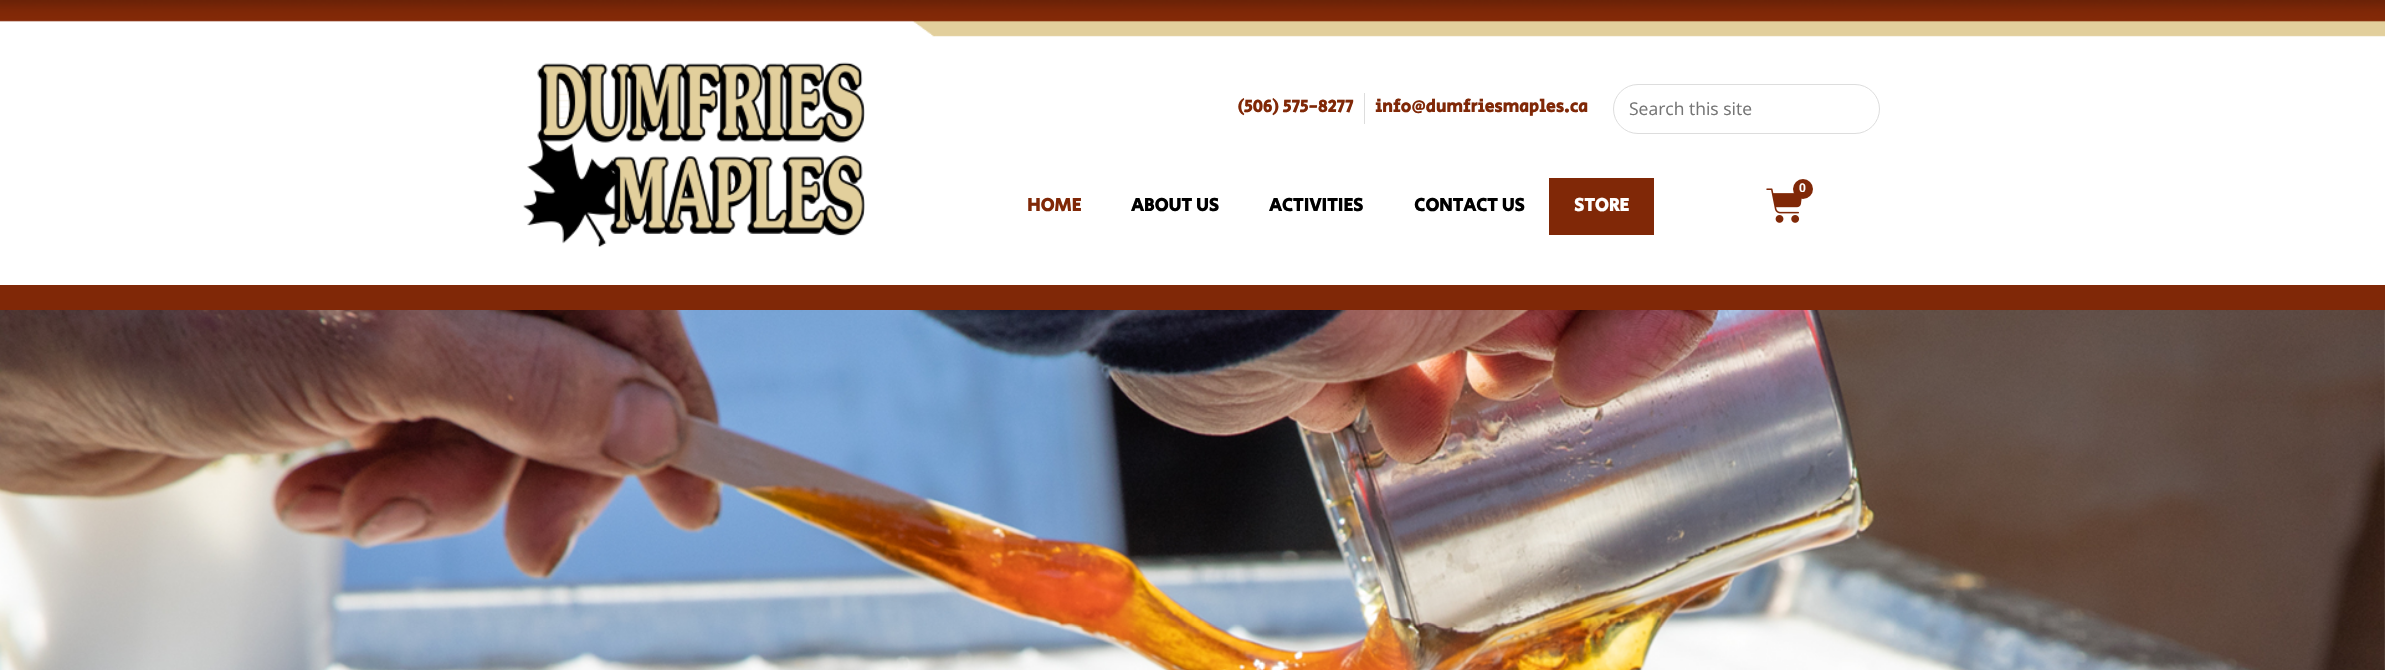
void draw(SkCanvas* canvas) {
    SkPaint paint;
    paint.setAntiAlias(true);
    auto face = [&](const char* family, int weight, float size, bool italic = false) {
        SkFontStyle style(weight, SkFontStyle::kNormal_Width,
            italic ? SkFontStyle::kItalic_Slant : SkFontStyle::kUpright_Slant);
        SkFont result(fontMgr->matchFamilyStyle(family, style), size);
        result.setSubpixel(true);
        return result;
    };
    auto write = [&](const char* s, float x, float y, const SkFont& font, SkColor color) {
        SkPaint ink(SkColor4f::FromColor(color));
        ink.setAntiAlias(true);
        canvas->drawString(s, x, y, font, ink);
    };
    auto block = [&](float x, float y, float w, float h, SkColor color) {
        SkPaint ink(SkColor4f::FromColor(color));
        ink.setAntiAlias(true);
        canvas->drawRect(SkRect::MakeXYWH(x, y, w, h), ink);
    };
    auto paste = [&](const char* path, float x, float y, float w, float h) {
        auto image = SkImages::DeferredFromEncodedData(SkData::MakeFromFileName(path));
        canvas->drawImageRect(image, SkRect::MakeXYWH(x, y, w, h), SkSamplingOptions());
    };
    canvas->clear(SK_ColorWHITE);
    paste("pic1.png", 0, 0, 2385, 37);
    block(0, 285, 2385, 25, SkColorSetRGB(128, 40, 7));
    paste("pic2.png", 523, 62, 342, 185);
    auto kFont1 = face("Secular One", 700, 17.5f);
    write("(506) 575-8277", 1237, 112, kFont1, SkColorSetRGB(128, 40, 7));
    block(1364, 93, 1, 31, SkColorSetRGB(221, 221, 221));
    write("info@dumfriesmaples.ca", 1375, 112, kFont1, SkColorSetRGB(128, 40, 7));
    paint.setStyle(SkPaint::kStroke_Style);
    paint.setStrokeWidth(1);
    paint.setColor(SkColorSetRGB(221, 221, 221));
    canvas->drawRoundRect(SkRect::MakeXYWH(1613.5f, 84.5f, 266, 49), 24.5f, 24.5f, paint);
    auto kFont2 = face("Open Sans", 400, 17.5f);
    write("Search this site", 1629, 115, kFont2, SkColorSetRGB(117, 117, 117));
    paste("pic3.png", 1766, 188, 36, 35);
    paint.setStyle(SkPaint::kFill_Style);
    paint.setColor(SkColorSetRGB(128, 40, 7));
    canvas->drawCircle(1803, 189, 10, paint);
    auto kFont3 = face("Roboto", 600, 12);
    write("0", 1799, 192, kFont3, SK_ColorWHITE);
    auto kFont4 = face("Secular One", 700, 18.75f);
    write("HOME", 1027, 211, kFont4, SkColorSetRGB(128, 40, 7));
    write("ABOUT US", 1131, 211, kFont4, SK_ColorBLACK);
    write("ACTIVITIES", 1269, 211, kFont4, SK_ColorBLACK);
    write("CONTACT US", 1414, 211, kFont4, SK_ColorBLACK);
    block(1549, 178, 105, 57, SkColorSetRGB(128, 40, 7));
    write("STORE", 1574, 211, kFont4, SK_ColorWHITE);
    paste("pic4.png", 0, 310, 2385, 360);
}
